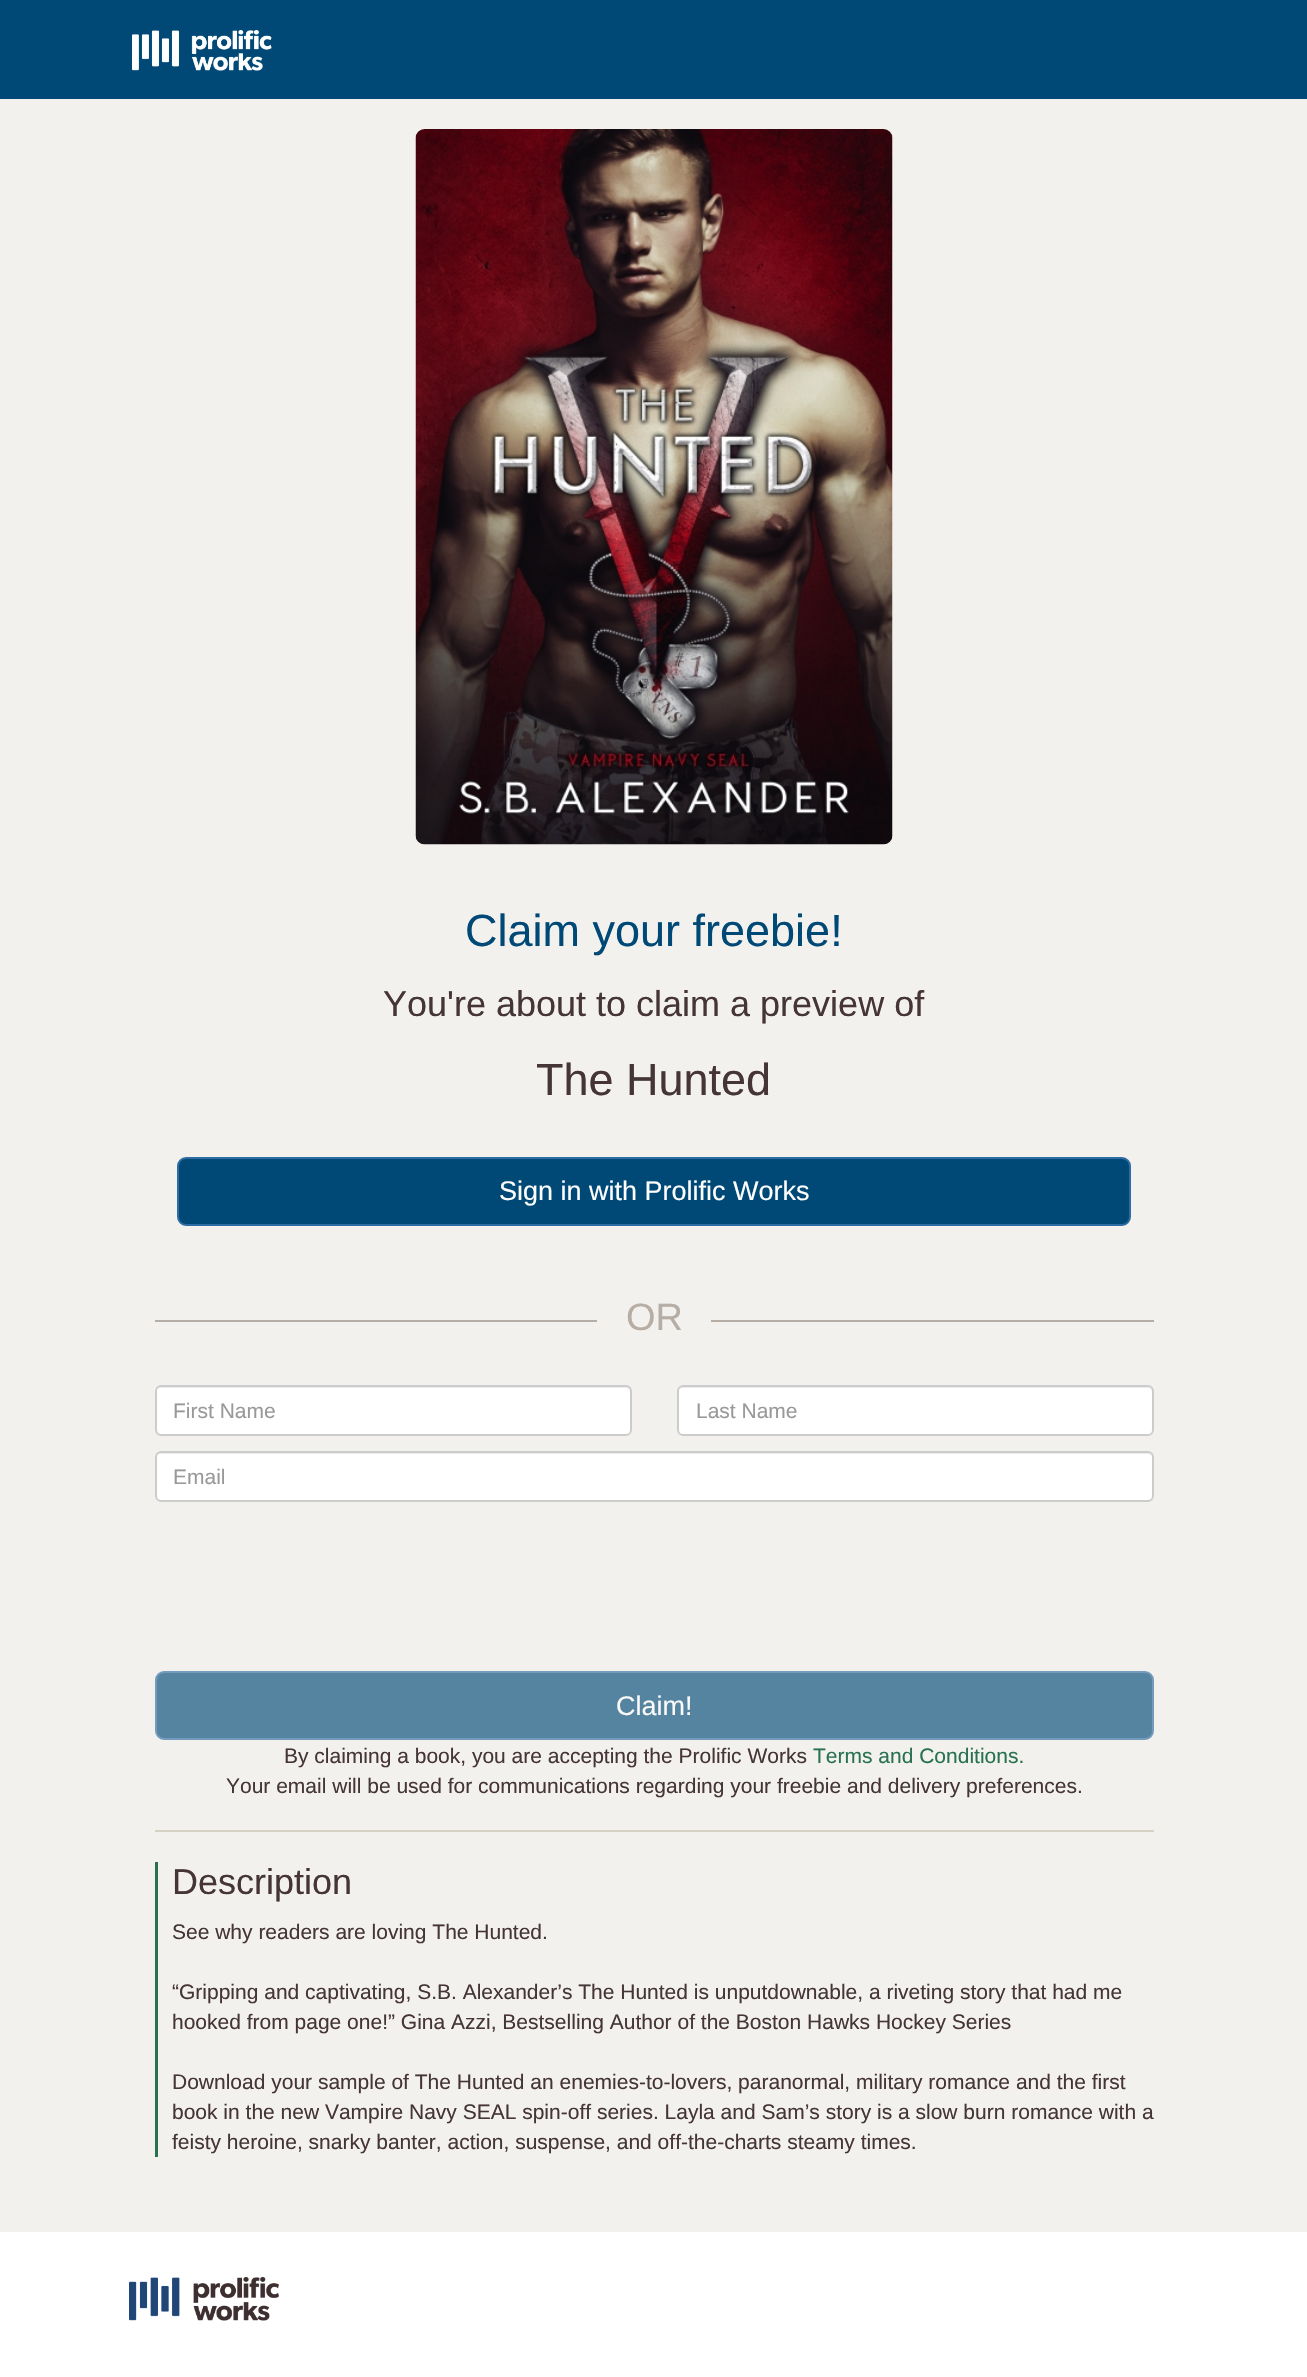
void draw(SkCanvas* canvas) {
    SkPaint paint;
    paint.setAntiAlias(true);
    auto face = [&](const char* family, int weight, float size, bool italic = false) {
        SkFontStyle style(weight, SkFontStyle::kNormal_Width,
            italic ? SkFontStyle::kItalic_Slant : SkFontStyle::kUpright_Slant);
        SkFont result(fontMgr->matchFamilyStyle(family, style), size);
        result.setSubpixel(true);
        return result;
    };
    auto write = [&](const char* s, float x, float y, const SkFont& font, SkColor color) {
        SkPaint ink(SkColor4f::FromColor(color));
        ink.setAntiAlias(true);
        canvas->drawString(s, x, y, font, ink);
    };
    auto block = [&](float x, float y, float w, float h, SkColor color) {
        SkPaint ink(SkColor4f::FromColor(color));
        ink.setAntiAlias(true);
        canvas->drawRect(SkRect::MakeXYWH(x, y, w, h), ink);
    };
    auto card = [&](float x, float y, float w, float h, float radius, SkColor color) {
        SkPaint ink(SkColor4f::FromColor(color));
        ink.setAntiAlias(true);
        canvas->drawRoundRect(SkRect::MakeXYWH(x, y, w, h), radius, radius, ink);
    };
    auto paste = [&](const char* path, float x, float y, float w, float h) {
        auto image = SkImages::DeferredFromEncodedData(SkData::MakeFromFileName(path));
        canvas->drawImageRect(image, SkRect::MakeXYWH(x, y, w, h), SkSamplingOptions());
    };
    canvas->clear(SkColorSetRGB(243, 241, 238));
    block(0, 0, 1307, 99, SkColorSetRGB(0, 73, 118));
    paste("pic1.png", 132, 30, 140, 41);
    paste("pic2.png", 415, 129, 478, 716);
    auto kFont1 = face("Liberation Sans", 400, 45);
    write("Claim your freebie!", 465, 946, kFont1, SkColorSetRGB(0, 73, 118));
    auto kFont2 = face("Liberation Sans", 400, 36);
    write("You're about to claim a preview of", 383, 1016, kFont2, SkColorSetRGB(69, 53, 54));
    write("The Hunted", 536, 1095, kFont1, SkColorSetRGB(69, 53, 54));
    paint.setColor(SkColorSetRGB(0, 73, 118));
    canvas->drawRoundRect(SkRect::MakeXYWH(178, 1158, 952, 67), 8, 8, paint);
    paint.setStyle(SkPaint::kStroke_Style);
    paint.setStrokeWidth(2);
    paint.setColor(SkColorSetRGB(46, 109, 164));
    canvas->drawRoundRect(SkRect::MakeXYWH(178, 1158, 952, 67), 8, 8, paint);
    auto kFont3 = face("Liberation Sans", 400, 27);
    write("Sign in with Prolific Works", 499, 1200, kFont3, SK_ColorWHITE);
    block(155, 1320, 442, 2, SkColorSetRGB(182, 173, 165));
    auto kFont4 = face("Liberation Sans", 400, 38);
    write("OR", 626, 1330, kFont4, SkColorSetRGB(182, 173, 165));
    block(711, 1320, 443, 2, SkColorSetRGB(182, 173, 165));
    card(155, 1385, 477, 51, 6, SK_ColorWHITE);
    paint.setStyle(SkPaint::kFill_Style);
    paint.setColor(SkColorSetRGB(236, 236, 236));
    canvas->drawPath(SkPathBuilder().moveTo(160, 1388).lineTo(626, 1388).cubicTo(628, 1388, 630, 1390, 630, 1392).lineTo(630, 1391).cubicTo(630, 1388, 628, 1386, 625, 1386).lineTo(161, 1386).cubicTo(158, 1386, 156, 1388, 156, 1391).lineTo(156, 1392).cubicTo(156, 1390, 158, 1388, 160, 1388).close().detach(), paint);
    paint.setStyle(SkPaint::kStroke_Style);
    paint.setColor(SkColorSetRGB(204, 204, 204));
    canvas->drawRoundRect(SkRect::MakeXYWH(156, 1386, 475, 49), 5, 5, paint);
    auto kFont5 = face("Liberation Sans", 400, 21);
    write("First Name", 173, 1418, kFont5, SkColorSetRGB(153, 153, 153));
    card(677, 1385, 477, 51, 6, SK_ColorWHITE);
    paint.setStyle(SkPaint::kFill_Style);
    paint.setColor(SkColorSetRGB(236, 236, 236));
    canvas->drawPath(SkPathBuilder().moveTo(682, 1388).lineTo(1148, 1388).cubicTo(1150, 1388, 1152, 1390, 1152, 1392).lineTo(1152, 1391).cubicTo(1152, 1388, 1150, 1386, 1147, 1386).lineTo(683, 1386).cubicTo(680, 1386, 678, 1388, 678, 1391).lineTo(678, 1392).cubicTo(678, 1390, 680, 1388, 682, 1388).close().detach(), paint);
    paint.setStyle(SkPaint::kStroke_Style);
    paint.setColor(SkColorSetRGB(204, 204, 204));
    canvas->drawRoundRect(SkRect::MakeXYWH(678, 1386, 475, 49), 5, 5, paint);
    write("Last Name", 696, 1418, kFont5, SkColorSetRGB(153, 153, 153));
    card(155, 1451, 999, 51, 6, SK_ColorWHITE);
    paint.setStyle(SkPaint::kFill_Style);
    paint.setColor(SkColorSetRGB(236, 236, 236));
    canvas->drawPath(SkPathBuilder().moveTo(160, 1454).lineTo(1148, 1454).cubicTo(1150, 1454, 1152, 1456, 1152, 1458).cubicTo(1152, 1455, 1150, 1452, 1147, 1452).lineTo(161, 1452).cubicTo(158, 1452, 156, 1455, 156, 1458).cubicTo(156, 1456, 158, 1454, 160, 1454).close().detach(), paint);
    paint.setStyle(SkPaint::kStroke_Style);
    paint.setColor(SkColorSetRGB(204, 204, 204));
    canvas->drawRoundRect(SkRect::MakeXYWH(156, 1452, 997, 49), 5, 5, paint);
    write("Email", 173, 1484, kFont5, SkColorSetRGB(153, 153, 153));
    paint.setStyle(SkPaint::kFill_Style);
    paint.setColor(SkColorSetRGB(85, 132, 160));
    canvas->drawRoundRect(SkRect::MakeXYWH(156, 1672, 997, 67), 8, 8, paint);
    paint.setStyle(SkPaint::kStroke_Style);
    paint.setColor(SkColorSetRGB(115, 155, 190));
    canvas->drawRoundRect(SkRect::MakeXYWH(156, 1672, 997, 67), 8, 8, paint);
    write("Claim!", 616, 1715, kFont3, SkColorSetRGB(251, 250, 249));
    write("By claiming a book, you are accepting the Prolific Works", 284, 1763, kFont5, SkColorSetRGB(69, 53, 54));
    write("Terms and Conditions.", 813, 1763, kFont5, SkColorSetRGB(40, 114, 79));
    write("Your email will be used for communications regarding your freebie and delivery preferences.", 226, 1793, kFont5, SkColorSetRGB(69, 53, 54));
    block(155, 1830, 999, 2, SkColorSetRGB(214, 210, 196));
    block(155, 1862, 3, 295, SkColorSetRGB(40, 114, 79));
    write("Description", 172, 1894, kFont2, SkColorSetRGB(69, 53, 54));
    write("See why readers are loving The Hunted.", 172, 1939, kFont5, SkColorSetRGB(69, 53, 54));
    write("“Gripping and captivating, S.B. Alexander’s The Hunted is unputdownable, a riveting story that had me", 172, 1999, kFont5, SkColorSetRGB(69, 53, 54));
    write("hooked from page one!” Gina Azzi, Bestselling Author of the Boston Hawks Hockey Series", 172, 2029, kFont5, SkColorSetRGB(69, 53, 54));
    write("Download your sample of The Hunted an enemies-to-lovers, paranormal, military romance and the first", 172, 2089, kFont5, SkColorSetRGB(69, 53, 54));
    write("book in the new Vampire Navy SEAL spin-off series. Layla and Sam’s story is a slow burn romance with a", 172, 2119, kFont5, SkColorSetRGB(69, 53, 54));
    write("feisty heroine, snarky banter, action, suspense, and off-the-charts steamy times.", 172, 2149, kFont5, SkColorSetRGB(69, 53, 54));
    block(0, 2232, 1307, 145, SK_ColorWHITE);
    paste("pic3.png", 129, 2277, 150, 44);
}
